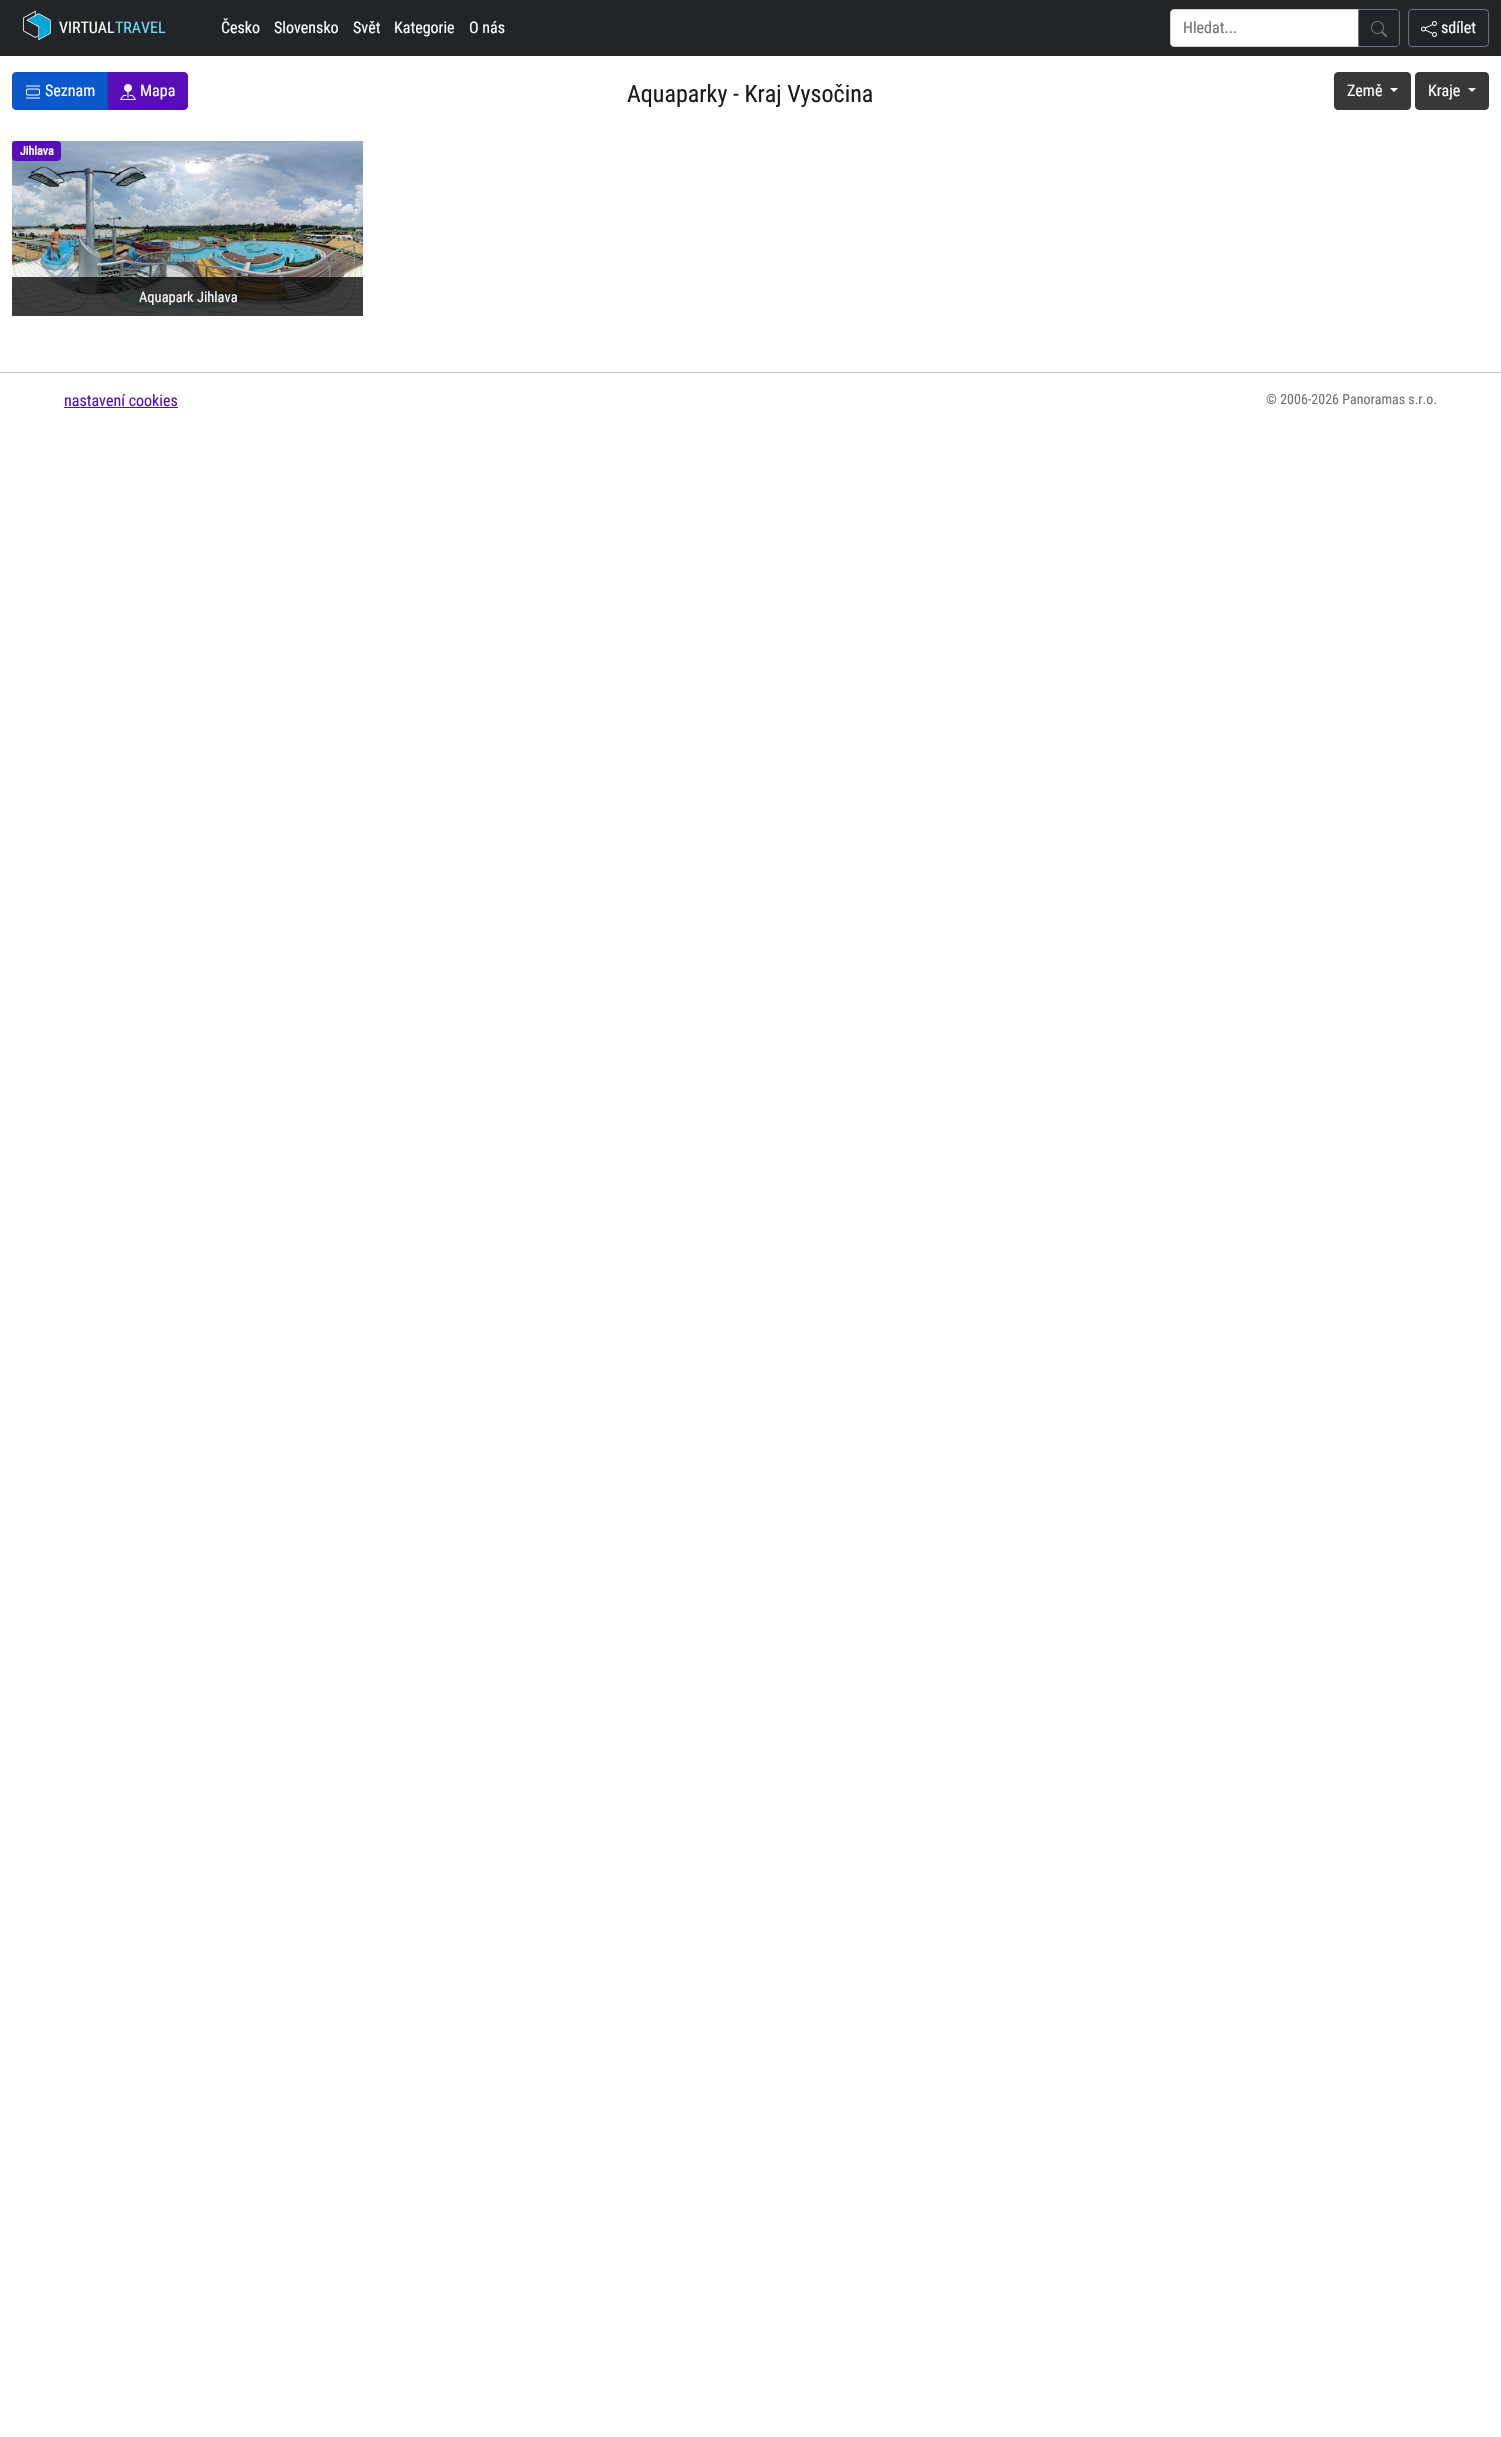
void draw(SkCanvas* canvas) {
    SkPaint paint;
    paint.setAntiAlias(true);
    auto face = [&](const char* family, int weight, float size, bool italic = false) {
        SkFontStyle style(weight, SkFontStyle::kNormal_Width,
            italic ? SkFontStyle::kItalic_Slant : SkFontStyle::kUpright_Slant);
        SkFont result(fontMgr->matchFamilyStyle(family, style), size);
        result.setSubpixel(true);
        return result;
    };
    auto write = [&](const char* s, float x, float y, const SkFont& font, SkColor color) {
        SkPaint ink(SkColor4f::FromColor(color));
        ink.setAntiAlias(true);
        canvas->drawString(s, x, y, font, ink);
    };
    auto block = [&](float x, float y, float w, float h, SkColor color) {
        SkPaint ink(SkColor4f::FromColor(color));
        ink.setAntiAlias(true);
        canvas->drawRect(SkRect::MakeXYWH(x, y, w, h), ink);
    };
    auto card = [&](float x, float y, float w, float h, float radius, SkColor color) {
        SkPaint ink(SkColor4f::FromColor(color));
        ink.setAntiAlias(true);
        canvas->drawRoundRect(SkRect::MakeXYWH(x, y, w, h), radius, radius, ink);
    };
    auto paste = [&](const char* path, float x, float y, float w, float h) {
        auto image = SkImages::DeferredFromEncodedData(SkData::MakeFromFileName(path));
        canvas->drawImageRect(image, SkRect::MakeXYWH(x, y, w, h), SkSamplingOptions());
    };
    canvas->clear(SK_ColorWHITE);
    block(0, 0, 1501, 56, SkColorSetRGB(33, 37, 41));
    paste("pic1.png", 23, 10, 28, 31);
    auto kFont1 = face("Roboto Condensed", 400, 16);
    write("VIRTUAL", 59, 33, kFont1, SK_ColorWHITE);
    write("TRAVEL", 115, 33, kFont1, SkColorSetRGB(114, 221, 247));
    write("Česko", 221, 33, kFont1, SK_ColorWHITE);
    write("Slovensko", 274, 33, kFont1, SK_ColorWHITE);
    write("Svět", 353, 33, kFont1, SK_ColorWHITE);
    write("Kategorie", 394, 33, kFont1, SK_ColorWHITE);
    write("O nás", 469, 33, kFont1, SK_ColorWHITE);
    paint.setColor(SK_ColorWHITE);
    canvas->drawPath(SkPathBuilder().moveTo(1174, 9.5f).lineTo(1358.5f, 9.5f).lineTo(1358.5f, 46.5f).lineTo(1174, 46.5f).cubicTo(1172, 46.5f, 1170.5f, 45, 1170.5f, 43).lineTo(1170.5f, 13).cubicTo(1170.5f, 11, 1172, 9.5f, 1174, 9.5f).close().detach(), paint);
    paint.setStyle(SkPaint::kStroke_Style);
    paint.setStrokeWidth(1);
    paint.setColor(SkColorSetRGB(206, 212, 218));
    canvas->drawPath(SkPathBuilder().moveTo(1174, 9.5f).lineTo(1358.5f, 9.5f).lineTo(1358.5f, 46.5f).lineTo(1174, 46.5f).cubicTo(1172, 46.5f, 1170.5f, 45, 1170.5f, 43).lineTo(1170.5f, 13).cubicTo(1170.5f, 11, 1172, 9.5f, 1174, 9.5f).close().detach(), paint);
    write("Hledat...", 1183, 33, kFont1, SkColorSetRGB(108, 117, 125));
    paint.setColor(SkColorSetRGB(108, 117, 125));
    canvas->drawPath(SkPathBuilder().moveTo(1358.5f, 9.5f).lineTo(1396, 9.5f).cubicTo(1398, 9.5f, 1399.5f, 11, 1399.5f, 13).lineTo(1399.5f, 43).cubicTo(1399.5f, 45, 1398, 46.5f, 1396, 46.5f).lineTo(1358.5f, 46.5f).close().detach(), paint);
    paste("pic2.png", 1371, 21, 16, 16);
    canvas->drawRoundRect(SkRect::MakeXYWH(1408.5f, 9.5f, 80, 37), 3.5f, 3.5f, paint);
    paste("pic3.png", 1421, 21, 16, 16);
    write("sdílet", 1441, 33, kFont1, SK_ColorWHITE);
    paint.setStyle(SkPaint::kFill_Style);
    paint.setColor(SkColorSetRGB(89, 14, 181));
    canvas->drawPath(SkPathBuilder().moveTo(107.5f, 72.5f).lineTo(184, 72.5f).cubicTo(186, 72.5f, 187.5f, 74, 187.5f, 76).lineTo(187.5f, 106).cubicTo(187.5f, 108, 186, 109.5f, 184, 109.5f).lineTo(107.5f, 109.5f).close().detach(), paint);
    paint.setStyle(SkPaint::kStroke_Style);
    canvas->drawPath(SkPathBuilder().moveTo(107.5f, 72.5f).lineTo(184, 72.5f).cubicTo(186, 72.5f, 187.5f, 74, 187.5f, 76).lineTo(187.5f, 106).cubicTo(187.5f, 108, 186, 109.5f, 184, 109.5f).lineTo(107.5f, 109.5f).close().detach(), paint);
    paint.setStyle(SkPaint::kFill_Style);
    paint.setColor(SkColorSetRGB(10, 88, 202));
    canvas->drawPath(SkPathBuilder().moveTo(16, 72.5f).lineTo(107.5f, 72.5f).lineTo(107.5f, 109.5f).lineTo(16, 109.5f).cubicTo(14, 109.5f, 12.5f, 108, 12.5f, 106).lineTo(12.5f, 76).cubicTo(12.5f, 74, 14, 72.5f, 16, 72.5f).close().detach(), paint);
    paint.setStyle(SkPaint::kStroke_Style);
    paint.setColor(SkColorSetRGB(10, 83, 190));
    canvas->drawPath(SkPathBuilder().moveTo(16, 72.5f).lineTo(107.5f, 72.5f).lineTo(107.5f, 109.5f).lineTo(16, 109.5f).cubicTo(14, 109.5f, 12.5f, 108, 12.5f, 106).lineTo(12.5f, 76).cubicTo(12.5f, 74, 14, 72.5f, 16, 72.5f).close().detach(), paint);
    paste("pic4.png", 26, 85, 14, 14);
    write("Seznam", 45, 96, kFont1, SK_ColorWHITE);
    paste("pic5.png", 120, 84, 16, 16);
    write("Mapa", 140, 96, kFont1, SK_ColorWHITE);
    auto kFont2 = face("Roboto Condensed", 400, 24);
    write("Aquaparky - Kraj Vysočina", 627, 102, kFont2, SkColorSetRGB(26, 26, 26));
    paint.setStyle(SkPaint::kFill_Style);
    paint.setColor(SkColorSetRGB(56, 56, 56));
    canvas->drawRoundRect(SkRect::MakeXYWH(1334.5f, 72.5f, 76, 37), 3.5f, 3.5f, paint);
    paint.setStyle(SkPaint::kStroke_Style);
    canvas->drawRoundRect(SkRect::MakeXYWH(1334.5f, 72.5f, 76, 37), 3.5f, 3.5f, paint);
    write("Země", 1347, 96, kFont1, SK_ColorWHITE);
    paint.setStyle(SkPaint::kFill_Style);
    paint.setColor(SK_ColorWHITE);
    canvas->drawPath(SkPathBuilder().moveTo(1390, 88).lineTo(1398, 88).lineTo(1394, 92).close().detach(), paint);
    paint.setColor(SkColorSetRGB(56, 56, 56));
    canvas->drawRoundRect(SkRect::MakeXYWH(1415.5f, 72.5f, 73, 37), 3.5f, 3.5f, paint);
    paint.setStyle(SkPaint::kStroke_Style);
    canvas->drawRoundRect(SkRect::MakeXYWH(1415.5f, 72.5f, 73, 37), 3.5f, 3.5f, paint);
    write("Kraje", 1428, 96, kFont1, SK_ColorWHITE);
    paint.setStyle(SkPaint::kFill_Style);
    paint.setColor(SK_ColorWHITE);
    canvas->drawPath(SkPathBuilder().moveTo(1468, 88).lineTo(1476, 88).lineTo(1472, 92).close().detach(), paint);
    paste("pic6.png", 12, 141, 351, 175);
    card(12, 141, 49, 20, 4, SkColorSetRGB(89, 14, 181));
    auto kFont3 = face("Roboto Condensed", 700, 12);
    write("Jihlava", 20, 155, kFont3, SK_ColorWHITE);
    block(12, 277, 351, 39, SkColorSetARGB(128, 0, 0, 0));
    block(12, 277, 351, 39, SkColorSetARGB(128, 0, 0, 0));
    auto kFont4 = face("Roboto Condensed", 400, 14.5f);
    write("Aquapark Jihlava", 139, 302, kFont4, SK_ColorWHITE);
    block(0, 372, 1501, 1, SkColorSetRGB(198, 198, 198));
    write("nastavení cookies", 64, 406, kFont1, SkColorSetRGB(89, 14, 181));
    block(64, 407, 114, 1, SkColorSetRGB(89, 14, 181));
    auto kFont5 = face("Roboto Condensed", 400, 14);
    write("© 2006-2026 Panoramas s.r.o.", 1266, 404, kFont5, SkColorSetRGB(108, 117, 125));
}
